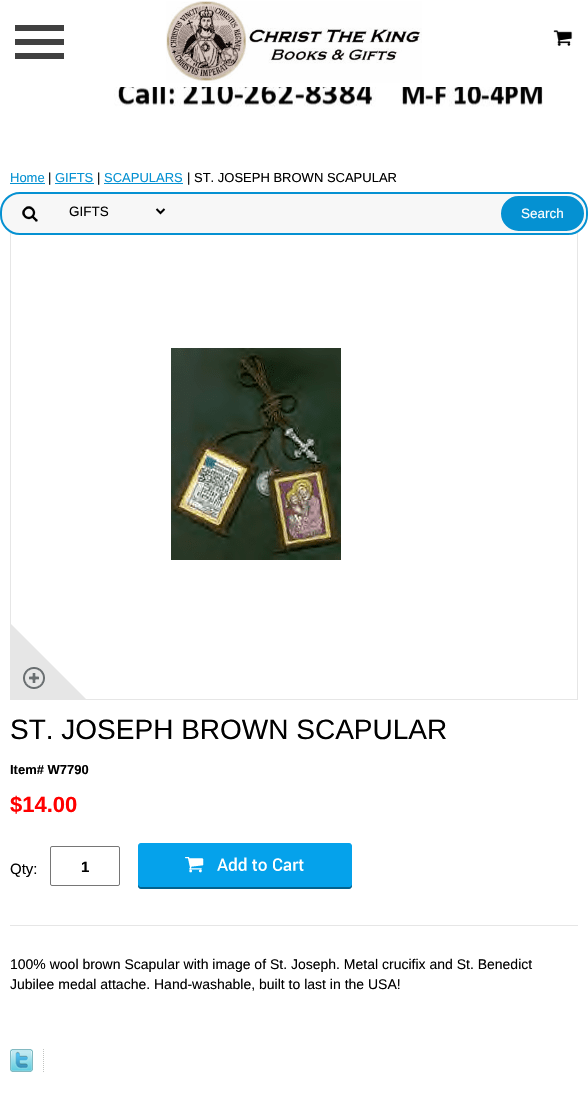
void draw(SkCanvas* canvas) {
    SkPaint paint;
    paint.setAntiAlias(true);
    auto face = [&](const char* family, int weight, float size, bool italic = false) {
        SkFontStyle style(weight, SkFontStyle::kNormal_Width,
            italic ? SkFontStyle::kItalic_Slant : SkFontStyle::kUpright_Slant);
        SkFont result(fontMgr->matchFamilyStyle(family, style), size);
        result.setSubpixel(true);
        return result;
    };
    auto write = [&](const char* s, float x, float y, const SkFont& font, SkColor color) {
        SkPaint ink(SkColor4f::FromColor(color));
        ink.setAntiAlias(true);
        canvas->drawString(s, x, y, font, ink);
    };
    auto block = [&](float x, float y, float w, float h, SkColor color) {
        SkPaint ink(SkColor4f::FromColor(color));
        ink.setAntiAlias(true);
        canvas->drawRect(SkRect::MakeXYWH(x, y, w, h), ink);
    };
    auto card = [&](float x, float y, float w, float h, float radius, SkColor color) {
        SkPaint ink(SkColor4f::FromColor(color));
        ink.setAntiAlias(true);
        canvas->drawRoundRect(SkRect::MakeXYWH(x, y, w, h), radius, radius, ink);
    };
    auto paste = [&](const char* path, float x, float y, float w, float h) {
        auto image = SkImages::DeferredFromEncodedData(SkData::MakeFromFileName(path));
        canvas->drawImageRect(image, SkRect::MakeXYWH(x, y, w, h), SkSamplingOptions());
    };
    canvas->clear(SK_ColorWHITE);
    auto kFont1 = face("Liberation Sans", 400, 13);
    write("Home", 10, 182, kFont1, SkColorSetRGB(5, 145, 210));
    block(10, 183, 35, 1, SkColorSetRGB(5, 145, 210));
    write("|", 48, 182, kFont1, SK_ColorBLACK);
    write("GIFTS", 55, 182, kFont1, SkColorSetRGB(5, 145, 210));
    block(55, 183, 39, 1, SkColorSetRGB(5, 145, 210));
    write("|", 97, 182, kFont1, SK_ColorBLACK);
    write("SCAPULARS", 104, 182, kFont1, SkColorSetRGB(5, 145, 210));
    block(104, 183, 79, 1, SkColorSetRGB(5, 145, 210));
    write("| ST. JOSEPH BROWN SCAPULAR", 187, 182, kFont1, SK_ColorBLACK);
    paint.setStyle(SkPaint::kStroke_Style);
    paint.setStrokeWidth(1);
    paint.setColor(SkColorSetRGB(230, 230, 230));
    canvas->drawRect(SkRect::MakeXYWH(10.5f, 208.5f, 567, 491), paint);
    paste("pic1.png", 171, 348, 170, 212);
    paste("pic2.png", 11, 624, 75, 75);
    auto kFont2 = face("Liberation Sans", 400, 28);
    write("ST. JOSEPH BROWN SCAPULAR", 10, 739, kFont2, SK_ColorBLACK);
    auto kFont3 = face("Liberation Sans", 700, 13);
    write("Item# W7790", 10, 774, kFont3, SK_ColorBLACK);
    auto kFont4 = face("Liberation Sans", 700, 22);
    write("$14.00", 10, 812, kFont4, SkColorSetRGB(255, 0, 0));
    auto kFont5 = face("Liberation Sans", 400, 15);
    write("Qty:", 10, 874, kFont5, SK_ColorBLACK);
    paint.setColor(SkColorSetRGB(118, 118, 118));
    canvas->drawRoundRect(SkRect::MakeXYWH(50.5f, 846.5f, 69, 39), 1.5f, 1.5f, paint);
    auto kFont6 = face("Liberation Sans", 700, 15);
    write("1", 81, 872, kFont6, SK_ColorBLACK);
    paste("pic3.png", 138, 843, 214, 46);
    block(10, 925, 568, 1, SkColorSetRGB(230, 230, 230));
    auto kFont7 = face("Liberation Sans", 400, 14);
    write("100% wool brown Scapular with image of St. Joseph. Metal crucifix and St. Benedict", 10, 969, kFont7, SK_ColorBLACK);
    write("Jubilee medal attache. Hand-washable, built to last in the USA!", 10, 989, kFont7, SK_ColorBLACK);
    paste("pic4.png", 10, 1049, 23, 23);
    paste("pic5.png", 43, 1049, 1, 23);
    paste("pic6.png", 553, 30, 20, 16);
    paste("pic7.png", 15, 25, 49, 34);
    paste("pic8.png", 166, 1, 256, 82);
    paste("pic9.png", 114, 87, 429, 20);
    card(0, 192, 588, 43, 20, SkColorSetRGB(247, 247, 247));
    paste("pic10.png", 22, 206, 16, 16);
    paint.setStrokeWidth(2);
    paint.setColor(SkColorSetRGB(5, 145, 210));
    canvas->drawRoundRect(SkRect::MakeXYWH(1, 193, 586, 41), 19, 19, paint);
    paint.setColor(SK_ColorBLACK);
    canvas->drawPath(SkPathBuilder().moveTo(156.5f, 209).lineTo(160.5f, 213).lineTo(164.5f, 209).detach(), paint);
    auto kFont8 = face("Liberation Sans", 400, 13.5f);
    write("GIFTS", 69, 216, kFont8, SK_ColorBLACK);
    paint.setStyle(SkPaint::kFill_Style);
    paint.setColor(SkColorSetRGB(5, 145, 210));
    canvas->drawRoundRect(SkRect::MakeXYWH(500, 195, 85, 37), 18.5f, 18.5f, paint);
    paint.setStyle(SkPaint::kStroke_Style);
    paint.setColor(SkColorSetRGB(247, 247, 247));
    canvas->drawRoundRect(SkRect::MakeXYWH(500, 195, 85, 37), 18.5f, 18.5f, paint);
    write("Search", 521, 218, kFont8, SK_ColorWHITE);
}
